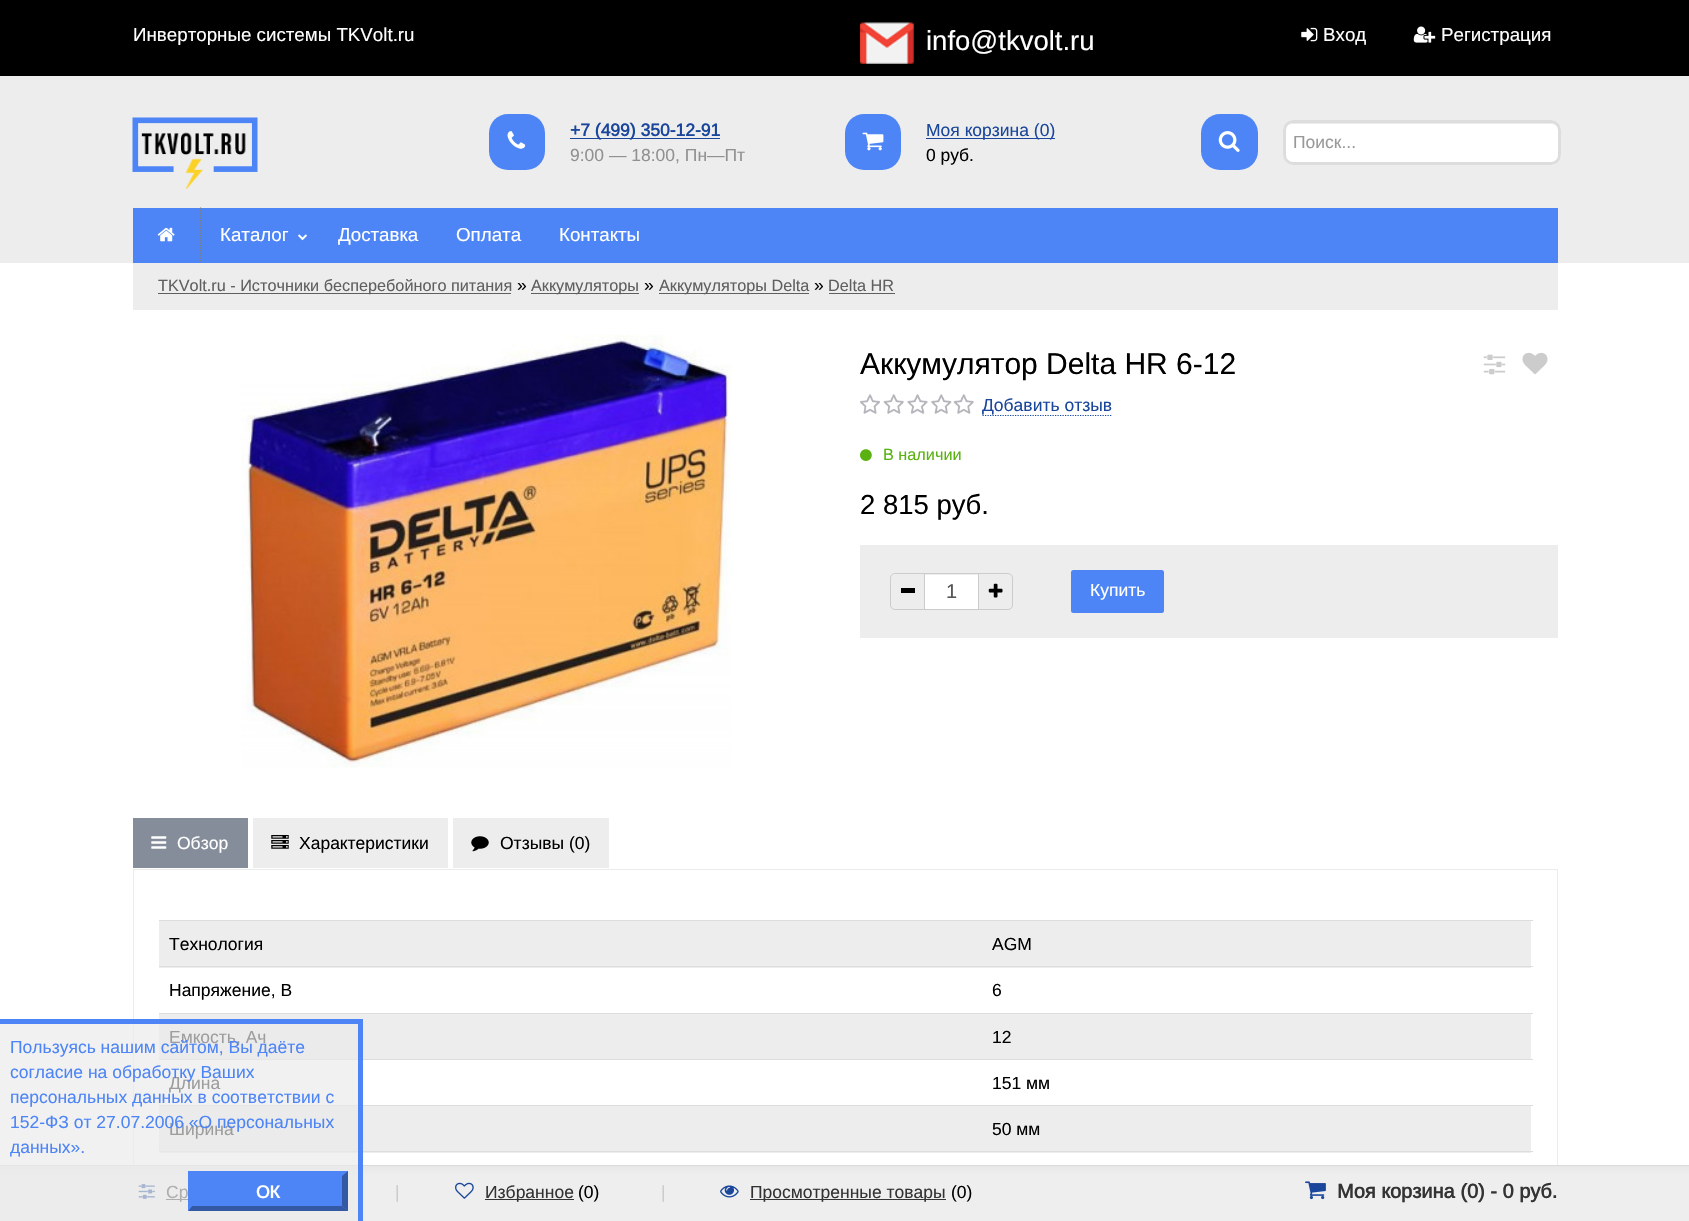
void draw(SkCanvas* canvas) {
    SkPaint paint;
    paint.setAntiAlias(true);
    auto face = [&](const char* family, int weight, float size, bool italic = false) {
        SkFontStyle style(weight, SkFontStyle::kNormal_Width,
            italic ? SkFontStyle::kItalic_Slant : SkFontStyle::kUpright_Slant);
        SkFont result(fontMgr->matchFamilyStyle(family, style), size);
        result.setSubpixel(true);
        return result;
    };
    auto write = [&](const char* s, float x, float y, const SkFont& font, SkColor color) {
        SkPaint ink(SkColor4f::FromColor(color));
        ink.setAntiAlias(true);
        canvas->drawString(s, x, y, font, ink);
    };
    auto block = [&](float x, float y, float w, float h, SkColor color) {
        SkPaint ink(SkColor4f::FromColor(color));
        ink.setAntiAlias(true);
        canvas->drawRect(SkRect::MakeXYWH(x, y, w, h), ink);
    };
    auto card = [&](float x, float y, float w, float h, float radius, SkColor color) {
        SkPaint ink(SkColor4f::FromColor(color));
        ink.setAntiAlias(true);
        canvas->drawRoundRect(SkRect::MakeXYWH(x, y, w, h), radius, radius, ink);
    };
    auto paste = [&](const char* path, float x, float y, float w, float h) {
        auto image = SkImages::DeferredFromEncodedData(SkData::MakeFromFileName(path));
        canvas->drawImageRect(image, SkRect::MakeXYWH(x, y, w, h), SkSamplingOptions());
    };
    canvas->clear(SK_ColorWHITE);
    block(0, 76, 1689, 187, SkColorSetRGB(237, 237, 237));
    block(0, 0, 1689, 76, SK_ColorBLACK);
    auto kFont1 = face("Arimo", 400, 18.75f);
    write("Инверторные системы TKVolt.ru", 133, 41, kFont1, SK_ColorWHITE);
    paste("pic1.png", 860, 22, 54, 42);
    auto kFont2 = face("Arimo", 400, 27.5f);
    write("info@tkvolt.ru", 926, 50, kFont2, SK_ColorWHITE);
    paste("pic2.png", 1301, 27, 17, 15);
    write("Вход", 1323, 41, kFont1, SK_ColorWHITE);
    paste("pic3.png", 1413, 26, 23, 17);
    write("Регистрация", 1441, 41, kFont1, SK_ColorWHITE);
    paste("pic4.png", 132, 117, 126, 72);
    card(489, 114, 56, 56, 19, SkColorSetRGB(77, 133, 246));
    paste("pic5.png", 507, 131, 19, 18);
    block(570, 138, 150, 1, SkColorSetRGB(26, 71, 155));
    auto kFont3 = face("Arimo", 700, 17.5f);
    write("+7 (499) 350-12-91", 570, 136, kFont3, SkColorSetRGB(26, 71, 155));
    auto kFont4 = face("Arimo", 400, 17.5f);
    write("9:00 — 18:00, Пн—Пт", 570, 161, kFont4, SkColorSetRGB(145, 145, 145));
    card(845, 114, 56, 56, 19, SkColorSetRGB(77, 133, 246));
    paste("pic6.png", 862, 132, 22, 19);
    block(926, 138, 129, 1, SkColorSetRGB(26, 71, 155));
    write("Моя корзина (0)", 926, 136, kFont4, SkColorSetRGB(26, 71, 155));
    write("0 руб.", 926, 161, kFont4, SK_ColorBLACK);
    card(1201, 114, 57, 56, 19, SkColorSetRGB(77, 133, 246));
    paste("pic7.png", 1218, 131, 22, 21);
    card(1283, 120, 278, 45, 10, SK_ColorWHITE);
    paint.setColor(SkColorSetRGB(236, 236, 236));
    canvas->drawPath(SkPathBuilder().moveTo(1292, 124).lineTo(1551, 124).cubicTo(1555, 124, 1559, 127, 1559, 131).cubicTo(1559, 127, 1555, 123, 1551, 123).lineTo(1293, 123).cubicTo(1289, 123, 1285, 127, 1285, 131).cubicTo(1285, 127, 1288, 124, 1292, 124).close().detach(), paint);
    paint.setStyle(SkPaint::kStroke_Style);
    paint.setStrokeWidth(3);
    paint.setColor(SkColorSetRGB(221, 221, 221));
    canvas->drawRoundRect(SkRect::MakeXYWH(1284.5f, 121.5f, 275, 42), 8.5f, 8.5f, paint);
    write("Поиск...", 1293, 148, kFont4, SkColorSetRGB(153, 153, 153));
    block(133, 208, 1425, 55, SkColorSetRGB(77, 133, 246));
    paint.setStrokeWidth(1.2f);
    paint.setColor(SkColorSetRGB(124, 124, 123));
    paint.setPathEffect(SkDashPathEffect::Make({{1.25f, 1.25f}}, 0));
    canvas->drawPath(SkPathBuilder().moveTo(200.5f, 207.5f).lineTo(200.5f, 262.5f).detach(), paint);
    paint.setPathEffect(nullptr);
    paste("pic8.png", 157, 227, 18, 15);
    write("Каталог", 220, 241, kFont1, SK_ColorWHITE);
    paste("pic9.png", 298, 234, 9, 7);
    write("Доставка", 338, 241, kFont1, SK_ColorWHITE);
    write("Оплата", 456, 241, kFont1, SK_ColorWHITE);
    write("Контакты", 559, 241, kFont1, SK_ColorWHITE);
    block(133, 263, 1425, 47, SkColorSetRGB(237, 237, 237));
    block(158, 293, 353, 1, SkColorSetRGB(95, 95, 95));
    auto kFont5 = face("Arimo", 400, 16.25f);
    write("TKVolt.ru - Источники бесперебойного питания", 158, 291, kFont5, SkColorSetRGB(95, 95, 95));
    write("»", 517, 291, kFont4, SK_ColorBLACK);
    block(531, 293, 108, 1, SkColorSetRGB(95, 95, 95));
    write("Аккумуляторы", 531, 291, kFont5, SkColorSetRGB(95, 95, 95));
    write("»", 644, 291, kFont4, SK_ColorBLACK);
    block(659, 293, 150, 1, SkColorSetRGB(95, 95, 95));
    write("Аккумуляторы Delta", 659, 291, kFont5, SkColorSetRGB(95, 95, 95));
    write("»", 814, 291, kFont4, SK_ColorBLACK);
    write("Delta HR", 828, 291, kFont5, SkColorSetRGB(95, 95, 95));
    block(829, 293, 66, 1, SkColorSetRGB(95, 95, 95));
    paste("pic10.png", 241, 335, 490, 433);
    auto kFont6 = face("Arimo", 400, 30);
    write("Аккумулятор Delta HR 6-12", 860, 374, kFont6, SK_ColorBLACK);
    paste("pic11.png", 1483, 354, 23, 21);
    paste("pic12.png", 1522, 352, 26, 23);
    paste("pic13.png", 860, 394, 20, 20);
    paste("pic14.png", 883, 394, 21, 20);
    paste("pic15.png", 907, 394, 21, 20);
    paste("pic16.png", 931, 394, 21, 20);
    paste("pic14.png", 953, 394, 21, 20);
    paint.setColor(SkColorSetRGB(26, 71, 155));
    paint.setPathEffect(SkDashPathEffect::Make({{1.25f, 1.25f}}, 0));
    canvas->drawPath(SkPathBuilder().moveTo(982.5f, 415.5f).lineTo(1112.5f, 415.5f).detach(), paint);
    paint.setPathEffect(nullptr);
    write("Добавить отзыв", 982, 411, kFont4, SkColorSetRGB(26, 71, 155));
    paste("pic17.png", 860, 449, 12, 12);
    write("В наличии", 883, 460, kFont5, SkColorSetRGB(89, 178, 16));
    write("2 815 руб.", 860, 514, kFont2, SK_ColorBLACK);
    block(860, 545, 698, 93, SkColorSetRGB(237, 237, 237));
    paint.setStrokeWidth(1);
    paint.setColor(SkColorSetRGB(204, 204, 204));
    canvas->drawPath(SkPathBuilder().moveTo(895, 573.5f).lineTo(924.5f, 573.5f).lineTo(924.5f, 609.5f).lineTo(895, 609.5f).cubicTo(892.5f, 609.5f, 890.5f, 607.5f, 890.5f, 605).lineTo(890.5f, 578).cubicTo(890.5f, 575.5f, 892.5f, 573.5f, 895, 573.5f).close().detach(), paint);
    block(901, 588, 14, 5, SK_ColorBLACK);
    block(925, 575, 53, 34, SK_ColorWHITE);
    canvas->drawPath(SkPathBuilder().moveTo(978.5f, 573.5f).lineTo(1008, 573.5f).cubicTo(1010.5f, 573.5f, 1012.5f, 575.5f, 1012.5f, 578).lineTo(1012.5f, 605).cubicTo(1012.5f, 607.5f, 1010.5f, 609.5f, 1008, 609.5f).lineTo(978.5f, 609.5f).close().detach(), paint);
    canvas->drawRect(SkRect::MakeXYWH(924.5f, 573.5f, 54, 36), paint);
    auto kFont7 = face("Arimo", 400, 20);
    write("1", 946, 598, kFont7, SkColorSetRGB(85, 85, 85));
    paste("pic18.png", 988, 583, 15, 15);
    card(1071, 570, 93, 43, 2.5f, SkColorSetRGB(77, 133, 246));
    write("Купить", 1090, 596, kFont4, SK_ColorWHITE);
    block(133, 818, 115, 50, SkColorSetRGB(132, 141, 153));
    paste("pic19.png", 151, 836, 16, 13);
    write("Обзор", 177, 849, kFont4, SK_ColorWHITE);
    block(253, 818, 195, 50, SkColorSetRGB(237, 237, 237));
    paste("pic20.png", 271, 835, 18, 14);
    write("Характеристики", 299, 849, kFont4, SK_ColorBLACK);
    block(453, 818, 156, 50, SkColorSetRGB(237, 237, 237));
    paste("pic21.png", 471, 836, 18, 16);
    write("Отзывы (0)", 500, 849, kFont4, SK_ColorBLACK);
    paint.setColor(SkColorSetRGB(235, 235, 235));
    canvas->drawRect(SkRect::MakeXYWH(133.5f, 869.5f, 1424, 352), paint);
    block(159, 921, 1372, 47, SkColorSetRGB(237, 237, 237));
    write("Технология", 169, 950, kFont4, SK_ColorBLACK);
    block(159, 920, 1374, 1, SkColorSetRGB(221, 221, 221));
    write("AGM", 992, 950, kFont4, SK_ColorBLACK);
    write("Напряжение, В", 169, 996, kFont4, SK_ColorBLACK);
    block(159, 966, 1374, 1, SkColorSetRGB(221, 221, 221));
    write("6", 992, 996, kFont4, SK_ColorBLACK);
    block(159, 1014, 1372, 45, SkColorSetRGB(237, 237, 237));
    write("Емкость, Ач", 169, 1043, kFont4, SK_ColorBLACK);
    block(159, 1013, 1374, 1, SkColorSetRGB(221, 221, 221));
    write("12", 992, 1043, kFont4, SK_ColorBLACK);
    write("Длина", 169, 1089, kFont4, SK_ColorBLACK);
    block(159, 1059, 1374, 1, SkColorSetRGB(221, 221, 221));
    write("151 мм", 992, 1089, kFont4, SK_ColorBLACK);
    block(159, 1106, 1372, 47, SkColorSetRGB(237, 237, 237));
    write("Ширина", 169, 1135, kFont4, SK_ColorBLACK);
    block(159, 1105, 1374, 1, SkColorSetRGB(221, 221, 221));
    write("50 мм", 992, 1135, kFont4, SK_ColorBLACK);
    block(159, 1151, 1374, 1, SkColorSetRGB(221, 221, 221));
    paint.setStyle(SkPaint::kFill_Style);
    {
        const SkColor colors[] = {SkColorSetRGB(232, 232, 232), SkColorSetRGB(238, 238, 238)};
        const float stops[] = {0, 0.18f};
        const SkPoint ends[] = {{845, 1166}, {845, 1221}};
        paint.setShader(SkGradientShader::MakeLinear(ends, colors, stops, 2, SkTileMode::kClamp));
        paint.setAlpha(255);
    }
    canvas->drawRect(SkRect::MakeXYWH(0, 1166, 1689, 55), paint);
    block(0, 1165, 1689, 1, SkColorSetRGB(219, 219, 219));
    paste("pic22.png", 138, 1184, 17, 15);
    block(166, 1199, 22, 1, SkColorSetRGB(51, 51, 51));
    write("Ср", 166, 1198, kFont4, SkColorSetRGB(51, 51, 51));
    block(0, 1024, 358, 197, SkColorSetARGB(171, 234, 234, 234));
    block(0, 1019, 363, 5, SkColorSetRGB(77, 133, 246));
    block(358, 1019, 5, 202, SkColorSetRGB(77, 133, 246));
    write("Пользуясь нашим сайтом, Вы даёте", 10, 1053, kFont4, SkColorSetRGB(77, 133, 246));
    write("согласие на обработку Ваших", 10, 1078, kFont4, SkColorSetRGB(77, 133, 246));
    write("персональных данных в соответствии с", 10, 1103, kFont4, SkColorSetRGB(77, 133, 246));
    write("152-ФЗ от 27.07.2006 «О персональных", 10, 1128, kFont4, SkColorSetRGB(77, 133, 246));
    write("данных».", 10, 1153, kFont4, SkColorSetRGB(77, 133, 246));
    block(188, 1171, 160, 40, SkColorSetRGB(77, 133, 246));
    paint.setShader(nullptr);
    paint.setColor(SkColorSetRGB(51, 89, 164));
    canvas->drawPath(SkPathBuilder().moveTo(348, 1171).lineTo(348, 1211).lineTo(342, 1206).lineTo(342, 1176).close().detach(), paint);
    canvas->drawPath(SkPathBuilder().moveTo(348, 1211).lineTo(188, 1211).lineTo(192, 1206).lineTo(342, 1206).close().detach(), paint);
    paint.setColor(SkColorSetRGB(77, 133, 246));
    canvas->drawPath(SkPathBuilder().moveTo(188, 1211).lineTo(188, 1171).lineTo(192, 1176).lineTo(192, 1206).close().detach(), paint);
    write("ОК", 256, 1198, kFont3, SK_ColorWHITE);
    write("|", 395, 1198, kFont4, SkColorSetRGB(204, 204, 204));
    paste("pic23.png", 455, 1182, 19, 17);
    block(485, 1199, 89, 1, SkColorSetRGB(51, 51, 51));
    write("Избранное", 485, 1198, kFont4, SkColorSetRGB(51, 51, 51));
    write("(0)", 578, 1198, kFont4, SK_ColorBLACK);
    write("|", 661, 1198, kFont4, SkColorSetRGB(204, 204, 204));
    paste("pic24.png", 720, 1185, 19, 13);
    block(750, 1199, 196, 1, SkColorSetRGB(51, 51, 51));
    write("Просмотренные товары", 750, 1198, kFont4, SkColorSetRGB(51, 51, 51));
    write("(0)", 951, 1198, kFont4, SK_ColorBLACK);
    paste("pic25.png", 1305, 1181, 21, 19);
    auto kFont8 = face("Arimo", 700, 20);
    write("Моя корзина (0) - 0 руб.", 1337, 1198, kFont8, SkColorSetRGB(51, 51, 51));
}
